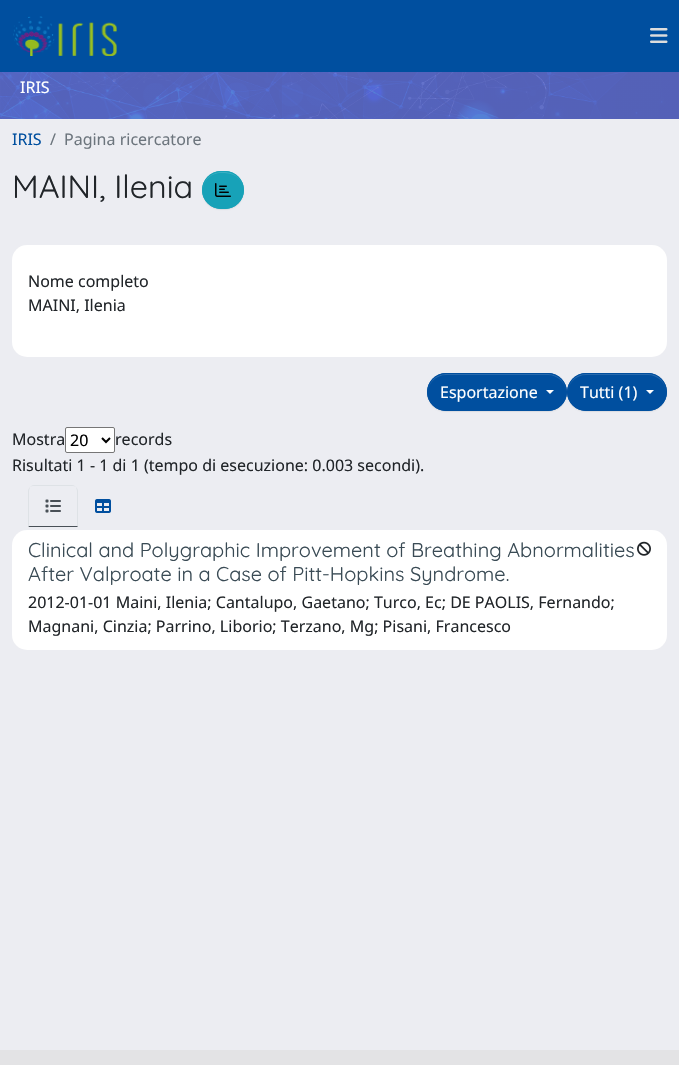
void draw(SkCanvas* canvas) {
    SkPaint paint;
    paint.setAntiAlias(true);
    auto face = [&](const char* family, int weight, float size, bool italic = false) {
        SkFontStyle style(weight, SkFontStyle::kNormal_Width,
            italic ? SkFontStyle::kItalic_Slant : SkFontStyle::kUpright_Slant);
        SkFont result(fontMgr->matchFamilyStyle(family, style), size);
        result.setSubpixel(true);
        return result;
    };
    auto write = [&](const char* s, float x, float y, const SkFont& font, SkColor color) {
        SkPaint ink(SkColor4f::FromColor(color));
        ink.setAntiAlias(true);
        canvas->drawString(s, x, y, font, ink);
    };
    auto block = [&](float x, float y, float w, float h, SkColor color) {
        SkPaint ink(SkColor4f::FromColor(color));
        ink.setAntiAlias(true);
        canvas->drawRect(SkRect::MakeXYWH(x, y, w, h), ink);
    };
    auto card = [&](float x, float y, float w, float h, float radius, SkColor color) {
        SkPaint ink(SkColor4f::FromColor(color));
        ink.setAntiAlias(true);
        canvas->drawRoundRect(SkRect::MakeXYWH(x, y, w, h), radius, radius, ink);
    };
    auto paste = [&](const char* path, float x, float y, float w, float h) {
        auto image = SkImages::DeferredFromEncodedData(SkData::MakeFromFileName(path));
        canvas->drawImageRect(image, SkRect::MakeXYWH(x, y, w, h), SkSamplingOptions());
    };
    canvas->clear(SkColorSetRGB(236, 237, 242));
    block(0, 0, 679, 72, SkColorSetRGB(0, 79, 159));
    paste("pic1.png", 13, 16, 104, 40);
    paste("pic2.png", 650, 28, 18, 15);
    paste("pic3.png", 0, 72, 679, 47);
    auto kFont1 = face("Noto Sans", 400, 16);
    write("IRIS", 20, 93, kFont1, SK_ColorWHITE);
    write("IRIS", 12, 145, kFont1, SkColorSetRGB(0, 79, 159));
    write("/", 50, 145, kFont1, SkColorSetRGB(108, 117, 125));
    write("Pagina ricercatore", 64, 145, kFont1, SkColorSetRGB(108, 117, 125));
    auto kFont2 = face("Quicksand", 400, 32.25f);
    write("MAINI, Ilenia", 12, 198, kFont2, SkColorSetRGB(33, 37, 41));
    paint.setColor(SkColorSetARGB(18, 0, 0, 0));
    paint.setMaskFilter(SkMaskFilter::MakeBlur(kNormal_SkBlurStyle, 0.5f));
    canvas->drawRoundRect(SkRect::MakeXYWH(202, 172, 42, 38), 19, 19, paint);
    paint.setMaskFilter(nullptr);
    card(202, 171, 42, 38, 19, SkColorSetRGB(23, 162, 184));
    paint.setColor(SkColorSetRGB(58, 176, 195));
    canvas->drawPath(SkPathBuilder().moveTo(221, 173).cubicTo(231, 173, 240, 175, 243, 187).cubicTo(239, 164, 200, 168, 203, 192).cubicTo(202, 183, 209, 173, 221, 173).close().detach(), paint);
    paint.setStyle(SkPaint::kStroke_Style);
    paint.setStrokeWidth(1);
    paint.setColor(SkColorSetRGB(23, 162, 184));
    canvas->drawRoundRect(SkRect::MakeXYWH(202.5f, 171.5f, 41, 37), 18.5f, 18.5f, paint);
    paste("pic4.png", 215, 183, 16, 14);
    card(12, 245, 655, 112, 15, SK_ColorWHITE);
    write("Nome completo", 28, 287, kFont1, SkColorSetRGB(33, 37, 41));
    write("MAINI, Ilenia", 28, 311, kFont1, SkColorSetRGB(33, 37, 41));
    paint.setStyle(SkPaint::kFill_Style);
    paint.setColor(SkColorSetARGB(18, 0, 0, 0));
    paint.setMaskFilter(SkMaskFilter::MakeBlur(kNormal_SkBlurStyle, 0.5f));
    canvas->drawRoundRect(SkRect::MakeXYWH(567, 374, 100, 38), 19, 19, paint);
    paint.setMaskFilter(nullptr);
    card(567, 373, 100, 38, 19, SkColorSetRGB(0, 79, 159));
    paint.setColor(SkColorSetRGB(38, 105, 173));
    canvas->drawPath(SkPathBuilder().moveTo(586, 375).lineTo(648, 375).cubicTo(658, 375, 666, 383, 666, 392).cubicTo(666, 384, 660, 376, 652, 374).lineTo(638, 374).lineTo(582, 374).cubicTo(574, 376, 568, 384, 568, 392).cubicTo(568, 383, 576, 375, 586, 375).close().detach(), paint);
    paint.setStyle(SkPaint::kStroke_Style);
    paint.setColor(SkColorSetRGB(0, 79, 159));
    canvas->drawRoundRect(SkRect::MakeXYWH(567.5f, 373.5f, 99, 37), 18.5f, 18.5f, paint);
    paint.setStyle(SkPaint::kFill_Style);
    paint.setColor(SkColorSetARGB(18, 0, 0, 0));
    paint.setMaskFilter(SkMaskFilter::MakeBlur(kNormal_SkBlurStyle, 0.5f));
    canvas->drawRoundRect(SkRect::MakeXYWH(427, 374, 140, 38), 19, 19, paint);
    paint.setMaskFilter(nullptr);
    card(427, 373, 140, 38, 19, SkColorSetRGB(0, 79, 159));
    paint.setColor(SkColorSetRGB(38, 105, 173));
    canvas->drawPath(SkPathBuilder().moveTo(446, 375).lineTo(548, 375).cubicTo(558, 375, 566, 383, 566, 392).cubicTo(566, 382, 558, 374, 548, 374).lineTo(446, 374).cubicTo(436, 374, 428, 382, 428, 392).cubicTo(428, 383, 436, 375, 446, 375).close().detach(), paint);
    paint.setStyle(SkPaint::kStroke_Style);
    paint.setColor(SkColorSetRGB(0, 79, 159));
    canvas->drawRoundRect(SkRect::MakeXYWH(427.5f, 373.5f, 139, 37), 18.5f, 18.5f, paint);
    write("Esportazione", 440, 398, kFont1, SK_ColorWHITE);
    paint.setStyle(SkPaint::kFill_Style);
    paint.setColor(SK_ColorWHITE);
    canvas->drawPath(SkPathBuilder().moveTo(546, 390).lineTo(554, 390).lineTo(550, 394).close().detach(), paint);
    write("Tutti (1)", 580, 398, kFont1, SK_ColorWHITE);
    canvas->drawPath(SkPathBuilder().moveTo(646, 390).lineTo(654, 390).lineTo(650, 394).close().detach(), paint);
    write("Mostra", 12, 445, kFont1, SkColorSetRGB(33, 37, 41));
    canvas->drawRoundRect(SkRect::MakeXYWH(65.5f, 427.5f, 49, 25), 1.5f, 1.5f, paint);
    paint.setStyle(SkPaint::kStroke_Style);
    paint.setColor(SkColorSetRGB(118, 118, 118));
    canvas->drawRoundRect(SkRect::MakeXYWH(65.5f, 427.5f, 49, 25), 1.5f, 1.5f, paint);
    paint.setStrokeWidth(2);
    paint.setColor(SK_ColorBLACK);
    canvas->drawPath(SkPathBuilder().moveTo(102, 438).lineTo(106, 442).lineTo(110, 438).detach(), paint);
    write("20", 70, 446, kFont1, SK_ColorBLACK);
    write("records", 115, 445, kFont1, SkColorSetRGB(33, 37, 41));
    write("Risultati 1 - 1 di 1 (tempo di esecuzione: 0.003 secondi).", 12, 471, kFont1, SkColorSetRGB(33, 37, 41));
    paint.setStyle(SkPaint::kFill_Style);
    paint.setColor(SkColorSetRGB(222, 226, 230));
    canvas->drawPath(SkPathBuilder().moveTo(34, 485).cubicTo(32, 485, 31, 486, 30, 487).cubicTo(31, 486, 32, 486, 34, 486).lineTo(72, 486).cubicTo(74, 486, 75, 486, 76, 487).cubicTo(75, 486, 74, 485, 72, 485).close().moveTo(78, 527).lineTo(78, 491).cubicTo(78, 490, 77, 488, 76, 487).cubicTo(76, 488, 77, 490, 77, 491).lineTo(77, 526).close().detach(), paint);
    paint.setColor(SkColorSetRGB(73, 80, 87));
    canvas->drawPath(SkPathBuilder().moveTo(78, 527).lineTo(77, 526).lineTo(29, 526).lineTo(28, 527).close().detach(), paint);
    paint.setColor(SkColorSetRGB(222, 226, 230));
    canvas->drawPath(SkPathBuilder().moveTo(28, 527).lineTo(29, 526).lineTo(29, 491).cubicTo(29, 490, 30, 488, 30, 487).cubicTo(29, 488, 28, 490, 28, 491).close().detach(), paint);
    paste("pic5.png", 45, 499, 16, 14);
    paste("pic6.png", 95, 499, 16, 14);
    card(12, 530, 655, 120, 15, SK_ColorWHITE);
    auto kFont3 = face("Quicksand", 400, 20);
    write("Clinical and Polygraphic Improvement of Breathing Abnormalities", 28, 557, kFont3, SkColorSetRGB(58, 75, 85));
    write("After Valproate in a Case of Pitt-Hopkins Syndrome.", 28, 581, kFont3, SkColorSetRGB(58, 75, 85));
    paste("pic7.png", 637, 541, 14, 15);
    write("2012-01-01 Maini, Ilenia; Cantalupo, Gaetano; Turco, Ec; DE PAOLIS, Fernando;", 28, 608, kFont1, SkColorSetRGB(33, 37, 41));
    write("Magnani, Cinzia; Parrino, Liborio; Terzano, Mg; Pisani, Francesco", 28, 632, kFont1, SkColorSetRGB(33, 37, 41));
    block(0, 1050, 679, 15, SkColorSetRGB(227, 227, 229));
}
